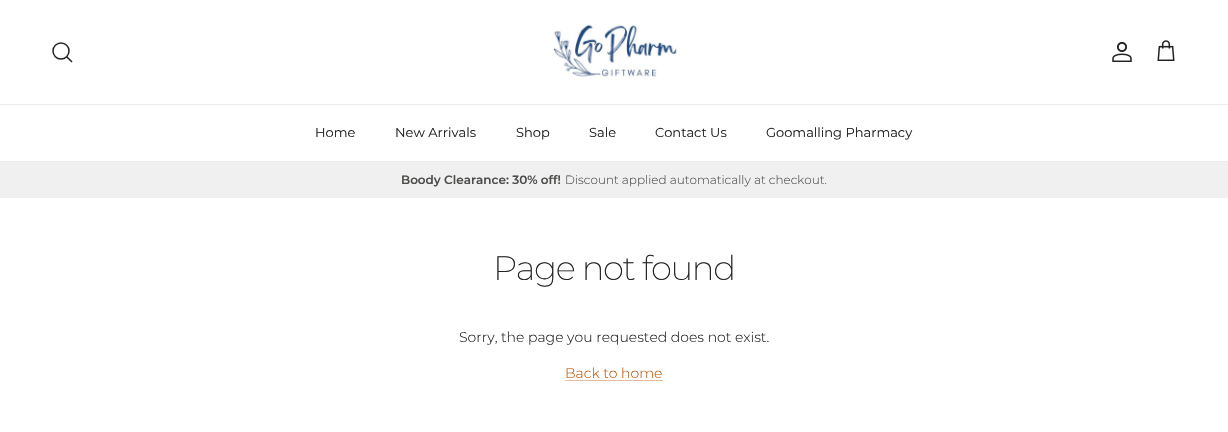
void draw(SkCanvas* canvas) {
    SkPaint paint;
    paint.setAntiAlias(true);
    auto face = [&](const char* family, int weight, float size, bool italic = false) {
        SkFontStyle style(weight, SkFontStyle::kNormal_Width,
            italic ? SkFontStyle::kItalic_Slant : SkFontStyle::kUpright_Slant);
        SkFont result(fontMgr->matchFamilyStyle(family, style), size);
        result.setSubpixel(true);
        return result;
    };
    auto write = [&](const char* s, float x, float y, const SkFont& font, SkColor color) {
        SkPaint ink(SkColor4f::FromColor(color));
        ink.setAntiAlias(true);
        canvas->drawString(s, x, y, font, ink);
    };
    auto writeSpaced = [&](const char* s, float x, float y, const SkFont& font, const SkPaint& ink, float letter, float word) {
        std::vector<SkGlyphID> glyphs(font.countText(s, strlen(s), SkTextEncoding::kUTF8));
        std::vector<float> xs(glyphs.size());
        font.textToGlyphs(s, strlen(s), SkTextEncoding::kUTF8, glyphs);
        font.getXPos(glyphs, xs, x);
        float extra = 0;
        for (size_t i = 0; i < glyphs.size(); i++) {
            xs[i] += extra;
            extra += letter + word * (glyphs[i] == font.unicharToGlyph(' '));
        }
        canvas->drawTextBlob(SkTextBlob::MakeFromPosHGlyphs(glyphs, xs, y, font), 0, 0, ink);
    };
    auto block = [&](float x, float y, float w, float h, SkColor color) {
        SkPaint ink(SkColor4f::FromColor(color));
        ink.setAntiAlias(true);
        canvas->drawRect(SkRect::MakeXYWH(x, y, w, h), ink);
    };
    auto paste = [&](const char* path, float x, float y, float w, float h) {
        auto image = SkImages::DeferredFromEncodedData(SkData::MakeFromFileName(path));
        canvas->drawImageRect(image, SkRect::MakeXYWH(x, y, w, h), SkSamplingOptions());
    };
    canvas->clear(SK_ColorWHITE);
    block(0, 104, 1228, 1, SkColorSetRGB(236, 236, 236));
    paint.setStyle(SkPaint::kStroke_Style);
    paint.setStrokeWidth(1.5f);
    paint.setColor(SkColorSetRGB(35, 35, 35));
    canvas->drawCircle(61, 51, 8, paint);
    paint.setStrokeCap(SkPaint::kSquare_Cap);
    canvas->drawPath(SkPathBuilder().moveTo(67, 57).lineTo(71.5f, 61.5f).detach(), paint);
    paste("pic1.png", 553, 24, 124, 53);
    paste("pic2.png", 1112, 42, 20, 20);
    paste("pic3.png", 1157, 40, 18, 21);
    block(0, 161, 1228, 1, SkColorSetRGB(236, 236, 236));
    auto kFont1 = face("Montserrat", 400, 13);
    write("Home", 315, 137, kFont1, SkColorSetRGB(35, 35, 35));
    write("New Arrivals", 395, 137, kFont1, SkColorSetRGB(35, 35, 35));
    write("Shop", 516, 137, kFont1, SkColorSetRGB(35, 35, 35));
    write("Sale", 589, 137, kFont1, SkColorSetRGB(35, 35, 35));
    write("Contact Us", 655, 137, kFont1, SkColorSetRGB(35, 35, 35));
    write("Goomalling Pharmacy", 766, 137, kFont1, SkColorSetRGB(35, 35, 35));
    block(0, 162, 1228, 36, SkColorSetRGB(240, 240, 240));
    auto kFont2 = face("Montserrat", 600, 12);
    write("Boody Clearance: 30% off!", 401, 184, kFont2, SkColorSetRGB(76, 76, 75));
    auto kFont3 = face("Montserrat", 300, 12);
    write("Discount applied automatically at checkout.", 565, 184, kFont3, SkColorSetRGB(76, 76, 75));
    auto kFont4 = face("Montserrat", 200, 34);
    paint.setStyle(SkPaint::kFill_Style);
    writeSpaced("Page not found", 493, 280, kFont4, paint, -1.4f, 0);
    auto kFont5 = face("Montserrat", 300, 14);
    write("Sorry, the page you requested does not exist.", 459, 342, kFont5, SkColorSetRGB(35, 35, 35));
    write("Back to home", 565, 378, kFont5, SkColorSetRGB(191, 87, 10));
    block(565, 380, 98, 1, SkColorSetRGB(229, 188, 157));
}
